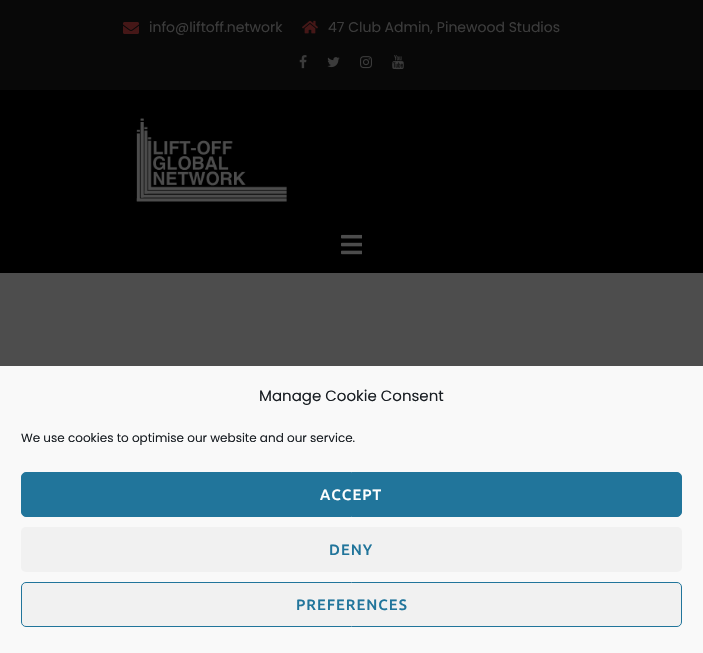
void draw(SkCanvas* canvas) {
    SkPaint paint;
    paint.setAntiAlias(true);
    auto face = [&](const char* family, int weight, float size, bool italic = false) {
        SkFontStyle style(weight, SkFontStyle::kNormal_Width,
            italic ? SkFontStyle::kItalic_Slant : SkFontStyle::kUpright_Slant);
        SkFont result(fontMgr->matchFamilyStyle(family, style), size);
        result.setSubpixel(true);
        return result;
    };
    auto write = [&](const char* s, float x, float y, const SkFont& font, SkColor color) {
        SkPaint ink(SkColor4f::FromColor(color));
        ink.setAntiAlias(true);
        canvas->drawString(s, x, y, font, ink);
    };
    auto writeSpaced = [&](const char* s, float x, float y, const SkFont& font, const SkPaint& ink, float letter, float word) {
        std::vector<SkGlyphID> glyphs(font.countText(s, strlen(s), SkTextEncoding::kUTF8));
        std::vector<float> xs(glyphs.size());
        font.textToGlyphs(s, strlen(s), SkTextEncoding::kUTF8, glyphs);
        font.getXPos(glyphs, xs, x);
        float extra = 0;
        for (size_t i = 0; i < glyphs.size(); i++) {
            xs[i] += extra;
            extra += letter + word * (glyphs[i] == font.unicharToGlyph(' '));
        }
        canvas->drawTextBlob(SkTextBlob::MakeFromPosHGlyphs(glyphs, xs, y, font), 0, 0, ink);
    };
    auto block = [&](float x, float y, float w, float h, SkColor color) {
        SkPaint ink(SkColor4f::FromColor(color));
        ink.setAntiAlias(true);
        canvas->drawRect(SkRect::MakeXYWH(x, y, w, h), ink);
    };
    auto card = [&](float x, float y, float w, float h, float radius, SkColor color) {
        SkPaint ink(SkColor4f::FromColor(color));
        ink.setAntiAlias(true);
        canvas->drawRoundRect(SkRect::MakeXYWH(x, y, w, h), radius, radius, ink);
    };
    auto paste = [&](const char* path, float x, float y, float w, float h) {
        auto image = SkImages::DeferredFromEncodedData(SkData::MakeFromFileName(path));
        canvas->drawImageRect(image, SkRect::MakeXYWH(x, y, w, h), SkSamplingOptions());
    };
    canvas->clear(SkColorSetRGB(77, 77, 77));
    block(0, 0, 703, 90, SkColorSetRGB(8, 8, 8));
    paste("pic1.png", 123, 22, 16, 12);
    auto kFont1 = face("Poppins", 400, 14);
    write("info@liftoff.network", 149, 32, kFont1, SkColorSetRGB(59, 59, 59));
    paste("pic2.png", 302, 20, 16, 14);
    write("47 Club Admin, Pinewood Studios", 328, 32, kFont1, SkColorSetRGB(59, 59, 59));
    paste("pic3.png", 299, 55, 8, 14);
    paste("pic4.png", 327, 57, 13, 11);
    paste("pic5.png", 360, 56, 12, 13);
    paste("pic6.png", 392, 55, 12, 15);
    block(0, 90, 703, 183, SK_ColorBLACK);
    paste("pic7.png", 136, 118, 151, 84);
    paste("pic8.png", 341, 234, 21, 21);
    block(0, 366, 703, 287, SkColorSetRGB(249, 249, 249));
    auto kFont2 = face("Poppins", 400, 15);
    write("Manage Cookie Consent", 259, 401, kFont2, SkColorSetRGB(25, 30, 35));
    auto kFont3 = face("Poppins", 400, 12);
    write("We use cookies to optimise our website and our service.", 21, 442, kFont3, SkColorSetRGB(25, 30, 35));
    paint.setColor(SkColorSetRGB(33, 117, 155));
    canvas->drawRoundRect(SkRect::MakeXYWH(21.5f, 472.5f, 660, 44), 4.5f, 4.5f, paint);
    paint.setStyle(SkPaint::kStroke_Style);
    paint.setStrokeWidth(1);
    canvas->drawRoundRect(SkRect::MakeXYWH(21.5f, 472.5f, 660, 44), 4.5f, 4.5f, paint);
    auto kFont4 = face("Ubuntu", 500, 15);
    paint.setStyle(SkPaint::kFill_Style);
    paint.setColor(SK_ColorWHITE);
    writeSpaced("ACCEPT", 320, 500, kFont4, paint, 1, 0);
    card(21, 527, 661, 45, 5, SkColorSetRGB(241, 241, 241));
    paint.setColor(SkColorSetRGB(33, 117, 155));
    writeSpaced("DENY", 329, 555, kFont4, paint, 1, 0);
    paint.setColor(SkColorSetRGB(241, 241, 241));
    canvas->drawRoundRect(SkRect::MakeXYWH(21.5f, 582.5f, 660, 44), 4.5f, 4.5f, paint);
    paint.setStyle(SkPaint::kStroke_Style);
    paint.setColor(SkColorSetRGB(33, 117, 155));
    canvas->drawRoundRect(SkRect::MakeXYWH(21.5f, 582.5f, 660, 44), 4.5f, 4.5f, paint);
    paint.setStyle(SkPaint::kFill_Style);
    writeSpaced("PREFERENCES", 296, 610, kFont4, paint, 1, 0);
}
